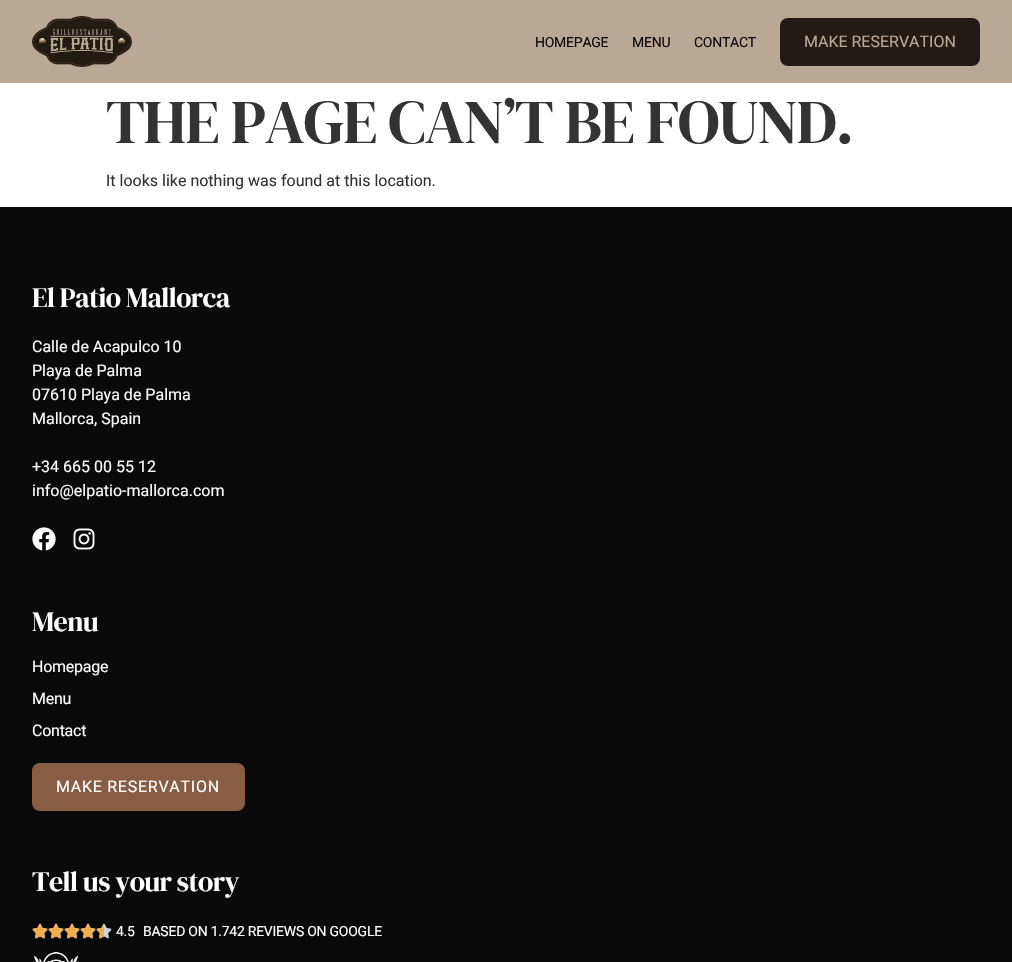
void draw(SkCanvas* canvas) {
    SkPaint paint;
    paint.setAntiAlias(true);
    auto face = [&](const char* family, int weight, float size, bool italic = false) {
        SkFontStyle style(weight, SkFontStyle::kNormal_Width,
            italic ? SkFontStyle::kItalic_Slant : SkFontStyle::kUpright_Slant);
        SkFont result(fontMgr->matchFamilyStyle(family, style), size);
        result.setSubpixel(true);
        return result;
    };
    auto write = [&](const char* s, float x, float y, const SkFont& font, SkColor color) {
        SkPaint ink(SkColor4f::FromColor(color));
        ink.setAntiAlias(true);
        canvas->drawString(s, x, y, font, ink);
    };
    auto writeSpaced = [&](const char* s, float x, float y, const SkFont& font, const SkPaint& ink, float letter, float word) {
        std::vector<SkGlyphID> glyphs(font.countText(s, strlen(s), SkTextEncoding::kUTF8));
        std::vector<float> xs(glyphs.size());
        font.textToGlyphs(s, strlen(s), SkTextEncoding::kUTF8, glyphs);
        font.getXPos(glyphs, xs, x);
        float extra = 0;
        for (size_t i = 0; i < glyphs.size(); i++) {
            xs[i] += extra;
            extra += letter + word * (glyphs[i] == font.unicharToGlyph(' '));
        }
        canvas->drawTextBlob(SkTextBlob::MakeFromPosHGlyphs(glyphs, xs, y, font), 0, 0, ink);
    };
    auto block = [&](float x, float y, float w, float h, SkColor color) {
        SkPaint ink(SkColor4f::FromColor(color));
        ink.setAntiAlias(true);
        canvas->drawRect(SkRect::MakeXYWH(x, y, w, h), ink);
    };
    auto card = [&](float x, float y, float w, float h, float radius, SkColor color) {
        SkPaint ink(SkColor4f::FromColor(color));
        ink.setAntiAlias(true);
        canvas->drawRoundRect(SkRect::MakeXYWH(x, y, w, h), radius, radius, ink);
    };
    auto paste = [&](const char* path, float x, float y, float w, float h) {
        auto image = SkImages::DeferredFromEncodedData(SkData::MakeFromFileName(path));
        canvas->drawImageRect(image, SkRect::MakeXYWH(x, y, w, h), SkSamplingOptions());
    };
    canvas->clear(SK_ColorWHITE);
    block(0, 0, 1012, 83, SkColorSetRGB(185, 168, 148));
    paste("pic1.png", 32, 16, 100, 51);
    auto kFont1 = face("Roboto", 400, 14);
    paint.setColor(SkColorSetRGB(10, 10, 10));
    writeSpaced("HOMEPAGE", 535, 47, kFont1, paint, -0.25f, 0);
    writeSpaced("MENU", 632, 47, kFont1, paint, -0.25f, 0);
    writeSpaced("CONTACT", 694, 47, kFont1, paint, -0.25f, 0);
    card(780, 18, 200, 48, 8, SkColorSetRGB(34, 27, 21));
    auto kFont2 = face("Roboto", 400, 16);
    write("MAKE RESERVATION", 804, 47, kFont2, SkColorSetRGB(185, 168, 148));
    auto kFont3 = face("DM Serif Display", 400, 62);
    paint.setColor(SkColorSetRGB(51, 51, 51));
    writeSpaced("THE PAGE CAN’T BE FOUND.", 106, 143, kFont3, paint, -1.25f, 0);
    write("It looks like nothing was found at this location.", 106, 186, kFont2, SkColorSetRGB(51, 51, 51));
    block(0, 207, 1012, 755, SkColorSetRGB(10, 10, 10));
    auto kFont4 = face("DM Serif Display", 400, 28);
    paint.setColor(SK_ColorWHITE);
    writeSpaced("El Patio Mallorca", 32, 307, kFont4, paint, -0.6f, 0);
    write("Calle de Acapulco 10", 32, 352, kFont2, SK_ColorWHITE);
    write("Playa de Palma", 32, 376, kFont2, SK_ColorWHITE);
    write("07610 Playa de Palma", 32, 400, kFont2, SK_ColorWHITE);
    write("Mallorca, Spain", 32, 424, kFont2, SK_ColorWHITE);
    write("+34 665 00 55 12", 32, 472, kFont2, SK_ColorWHITE);
    write("info@elpatio-mallorca.com", 32, 496, kFont2, SK_ColorWHITE);
    paste("pic2.png", 32, 527, 24, 24);
    paste("pic3.png", 73, 528, 22, 22);
    writeSpaced("Menu", 32, 631, kFont4, paint, -0.6f, 0);
    writeSpaced("Homepage", 32, 672, kFont2, paint, -0.25f, 0);
    writeSpaced("Menu", 32, 704, kFont2, paint, -0.25f, 0);
    writeSpaced("Contact", 32, 736, kFont2, paint, -0.25f, 0);
    card(32, 763, 213, 48, 8, SkColorSetRGB(135, 93, 68));
    writeSpaced("MAKE RESERVATION", 56, 792, kFont2, paint, 0.75f, 0);
    writeSpaced("Tell us your story", 32, 891, kFont4, paint, -0.6f, 0);
    paste("pic4.png", 32, 923, 16, 16);
    paste("pic5.png", 32, 923, 16, 16);
    paste("pic4.png", 48, 923, 16, 16);
    paste("pic5.png", 48, 923, 16, 16);
    paste("pic4.png", 64, 923, 16, 16);
    paste("pic5.png", 64, 923, 16, 16);
    paste("pic4.png", 80, 923, 16, 16);
    paste("pic5.png", 80, 923, 16, 16);
    paste("pic4.png", 96, 923, 16, 16);
    paste("pic6.png", 96, 923, 8, 16);
    writeSpaced("4.5", 116, 936, kFont1, paint, -0.25f, 0);
    writeSpaced("BASED ON 1.742 REVIEWS ON GOOGLE", 143, 936, kFont1, paint, -0.25f, 0);
    paste("pic7.png", 33, 952, 46, 10);
}
